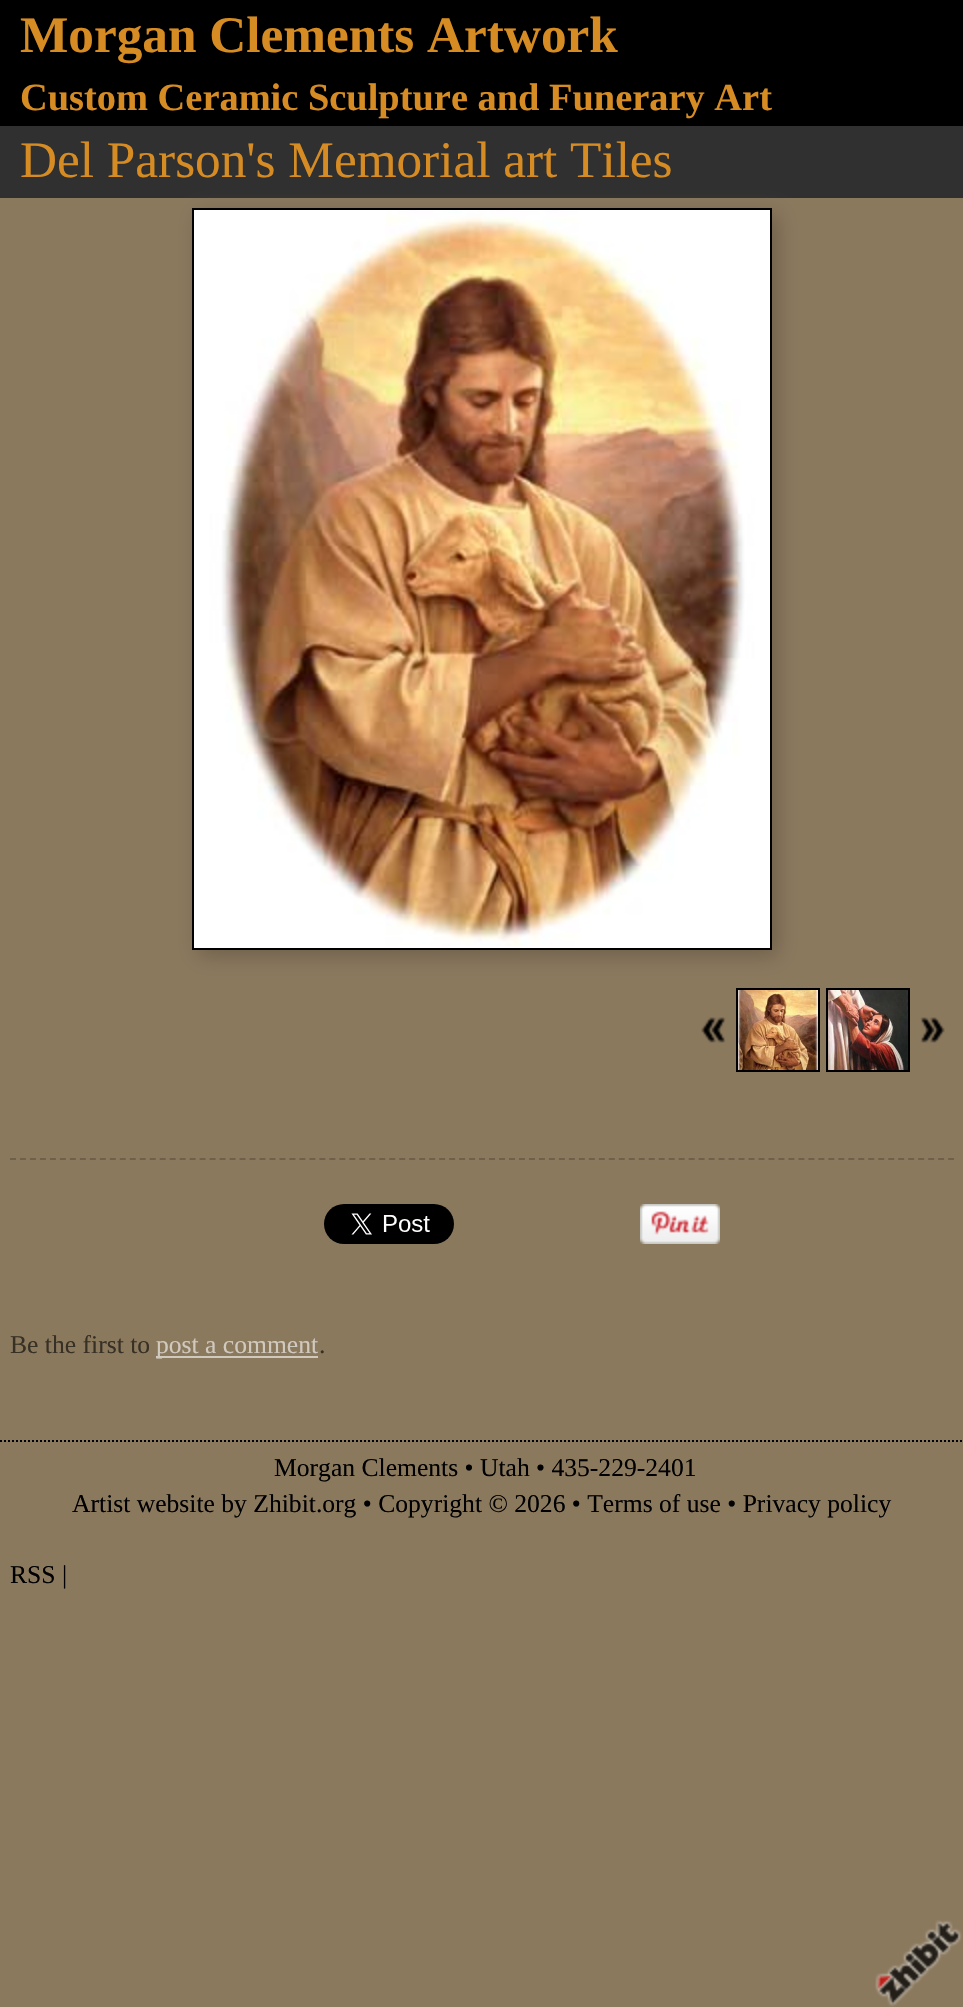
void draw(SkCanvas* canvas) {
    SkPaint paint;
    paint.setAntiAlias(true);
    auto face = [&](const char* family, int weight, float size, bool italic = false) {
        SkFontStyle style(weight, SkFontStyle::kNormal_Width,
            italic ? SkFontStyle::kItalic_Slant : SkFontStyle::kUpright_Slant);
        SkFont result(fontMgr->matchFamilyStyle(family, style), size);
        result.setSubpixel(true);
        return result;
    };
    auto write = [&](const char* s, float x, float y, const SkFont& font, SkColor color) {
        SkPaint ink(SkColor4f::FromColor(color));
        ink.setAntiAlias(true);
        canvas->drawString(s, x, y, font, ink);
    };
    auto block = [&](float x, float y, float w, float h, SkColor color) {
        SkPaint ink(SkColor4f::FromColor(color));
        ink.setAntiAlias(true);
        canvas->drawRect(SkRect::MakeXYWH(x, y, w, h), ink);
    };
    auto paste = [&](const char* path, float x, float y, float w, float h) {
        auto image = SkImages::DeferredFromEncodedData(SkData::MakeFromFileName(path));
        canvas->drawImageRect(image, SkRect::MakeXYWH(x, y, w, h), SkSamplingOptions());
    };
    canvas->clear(SkColorSetRGB(139, 121, 94));
    block(0, 0, 963, 126, SK_ColorBLACK);
    auto kFont1 = face("Liberation Serif", 700, 51.25f);
    write("Morgan Clements Artwork", 20, 52, kFont1, SkColorSetRGB(214, 140, 35));
    auto kFont2 = face("Liberation Serif", 700, 38.4f);
    write("Custom Ceramic Sculpture and Funerary Art", 20, 110, kFont2, SkColorSetRGB(214, 140, 35));
    block(0, 126, 963, 72, SkColorSetRGB(48, 48, 48));
    auto kFont3 = face("Liberation Serif", 400, 51.25f);
    write("Del Parson's Memorial art Tiles", 20, 177, kFont3, SkColorSetRGB(214, 140, 35));
    paint.setColor(SkColorSetRGB(111, 96, 75));
    paint.setMaskFilter(SkMaskFilter::MakeBlur(kNormal_SkBlurStyle, 10));
    canvas->drawRect(SkRect::MakeXYWH(198, 214, 580, 742), paint);
    paint.setMaskFilter(nullptr);
    paint.setStyle(SkPaint::kStroke_Style);
    paint.setStrokeWidth(2);
    paint.setColor(SK_ColorBLACK);
    canvas->drawRect(SkRect::MakeXYWH(193, 209, 578, 740), paint);
    paste("pic1.png", 194, 210, 576, 738);
    paste("pic2.png", 701, 1017, 25, 26);
    canvas->drawRect(SkRect::MakeXYWH(737, 989, 82, 82), paint);
    paste("pic3.png", 738, 990, 80, 80);
    canvas->drawRect(SkRect::MakeXYWH(827, 989, 82, 82), paint);
    paste("pic4.png", 828, 990, 80, 80);
    paste("pic5.png", 920, 1017, 25, 26);
    paint.setColor(SkColorSetRGB(111, 96, 75));
    paint.setPathEffect(SkDashPathEffect::Make({{6, 3.98f}}, 0));
    canvas->drawPath(SkPathBuilder().moveTo(10, 1159).lineTo(954, 1159).detach(), paint);
    paint.setPathEffect(nullptr);
    paste("pic6.png", 324, 1204, 130, 40);
    paste("pic7.png", 640, 1204, 80, 40);
    auto kFont4 = face("Liberation Serif", 400, 25.6f);
    write("Be the first to", 10, 1353, kFont4, SkColorSetRGB(55, 48, 37));
    block(156, 1356, 162, 2, SkColorSetRGB(208, 201, 190));
    write("post a comment", 156, 1353, kFont4, SkColorSetRGB(208, 201, 190));
    write(".", 319, 1353, kFont4, SkColorSetRGB(55, 48, 37));
    paint.setColor(SK_ColorBLACK);
    paint.setPathEffect(SkDashPathEffect::Make({{2, 2}}, 0));
    canvas->drawPath(SkPathBuilder().moveTo(0, 1441).lineTo(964, 1441).detach(), paint);
    paint.setPathEffect(nullptr);
    write("Morgan Clements • Utah • 435-229-2401", 274, 1476, kFont4, SK_ColorBLACK);
    write("Artist website by Zhibit.org • Copyright © 2026 • Terms of use • Privacy policy", 72, 1512, kFont4, SK_ColorBLACK);
    write("RSS |", 10, 1583, kFont4, SK_ColorBLACK);
    paste("pic8.png", 875, 1920, 87, 87);
}
